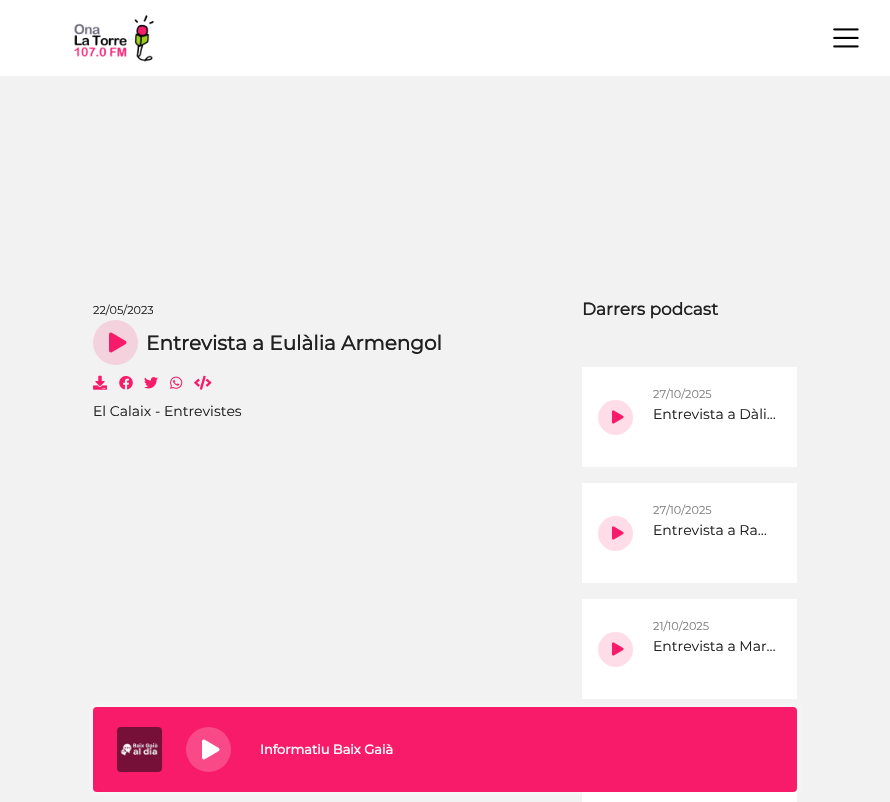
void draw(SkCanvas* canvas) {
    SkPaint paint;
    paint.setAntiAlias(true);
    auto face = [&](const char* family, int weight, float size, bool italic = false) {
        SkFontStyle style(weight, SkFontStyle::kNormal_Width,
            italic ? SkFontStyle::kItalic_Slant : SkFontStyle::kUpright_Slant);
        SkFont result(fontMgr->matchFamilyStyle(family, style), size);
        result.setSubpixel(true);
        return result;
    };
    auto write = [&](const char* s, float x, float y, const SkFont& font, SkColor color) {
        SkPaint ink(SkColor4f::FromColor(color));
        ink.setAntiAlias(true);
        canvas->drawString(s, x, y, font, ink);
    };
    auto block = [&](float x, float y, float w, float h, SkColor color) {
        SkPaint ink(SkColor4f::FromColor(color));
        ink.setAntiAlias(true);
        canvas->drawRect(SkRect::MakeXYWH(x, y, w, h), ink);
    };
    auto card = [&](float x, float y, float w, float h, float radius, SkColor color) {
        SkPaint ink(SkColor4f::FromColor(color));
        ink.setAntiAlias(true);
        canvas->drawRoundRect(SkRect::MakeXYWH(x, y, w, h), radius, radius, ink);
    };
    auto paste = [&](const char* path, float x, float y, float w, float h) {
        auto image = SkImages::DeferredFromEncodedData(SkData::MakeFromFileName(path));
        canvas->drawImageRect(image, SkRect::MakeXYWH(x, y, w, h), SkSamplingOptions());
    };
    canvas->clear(SkColorSetRGB(242, 242, 242));
    block(0, 0, 890, 76, SK_ColorWHITE);
    paste("pic1.png", 74, 15, 80, 47);
    paste("pic2.png", 833, 28, 26, 20);
    auto kFont1 = face("Montserrat", 100, 11.25f);
    write("22/05/2023", 93, 314, kFont1, SkColorSetRGB(32, 32, 32));
    paint.setColor(SkColorSetRGB(243, 210, 221));
    canvas->drawCircle(115.5f, 342.5f, 22.5f, paint);
    paste("pic3.png", 109, 332, 18, 21);
    auto kFont2 = face("Montserrat", 700, 20);
    write("Entrevista a Eulàlia Armengol", 146, 350, kFont2, SkColorSetRGB(32, 32, 32));
    paste("pic4.png", 93, 375, 14, 15);
    paste("pic5.png", 119, 376, 14, 14);
    paste("pic6.png", 144, 377, 14, 12);
    paste("pic7.png", 170, 376, 13, 13);
    paste("pic8.png", 194, 375, 18, 15);
    auto kFont3 = face("Montserrat", 100, 14);
    write("El Calaix - Entrevistes", 93, 416, kFont3, SkColorSetRGB(32, 32, 32));
    auto kFont4 = face("Montserrat", 700, 17);
    write("Darrers podcast", 582, 315, kFont4, SkColorSetRGB(32, 32, 32));
    block(582, 367, 215, 100, SK_ColorWHITE);
    paint.setColor(SkColorSetRGB(254, 221, 233));
    canvas->drawCircle(615.5f, 417.5f, 17.5f, paint);
    paste("pic9.png", 612, 410, 12, 14);
    write("27/10/2025", 653, 398, kFont1, SkColorSetRGB(128, 128, 128));
    write("Entrevista a Dàli…", 653, 419, kFont3, SkColorSetRGB(32, 32, 32));
    block(582, 483, 215, 100, SK_ColorWHITE);
    canvas->drawCircle(615.5f, 533.5f, 17.5f, paint);
    paste("pic9.png", 612, 526, 12, 14);
    write("27/10/2025", 653, 514, kFont1, SkColorSetRGB(128, 128, 128));
    write("Entrevista a Ra…", 653, 535, kFont3, SkColorSetRGB(32, 32, 32));
    block(582, 599, 215, 100, SK_ColorWHITE);
    canvas->drawCircle(615.5f, 649.5f, 17.5f, paint);
    paste("pic9.png", 612, 642, 12, 14);
    write("21/10/2025", 653, 630, kFont1, SkColorSetRGB(128, 128, 128));
    write("Entrevista a Mar…", 653, 651, kFont3, SkColorSetRGB(32, 32, 32));
    block(582, 788, 215, 14, SK_ColorWHITE);
    paint.setColor(SK_ColorWHITE);
    paint.setMaskFilter(SkMaskFilter::MakeBlur(kNormal_SkBlurStyle, 4));
    canvas->drawRoundRect(SkRect::MakeXYWH(93, 707, 704, 85), 4, 4, paint);
    paint.setMaskFilter(nullptr);
    card(93, 707, 704, 85, 4, SkColorSetRGB(248, 27, 105));
    paste("pic10.png", 117, 727, 45, 45);
    paint.setColor(SkColorSetRGB(249, 73, 135));
    canvas->drawCircle(208.5f, 749.5f, 22.5f, paint);
    paste("pic11.png", 202, 739, 18, 21);
    auto kFont5 = face("Montserrat", 700, 13);
    write("Informatiu Baix Gaià", 260, 754, kFont5, SK_ColorWHITE);
}
